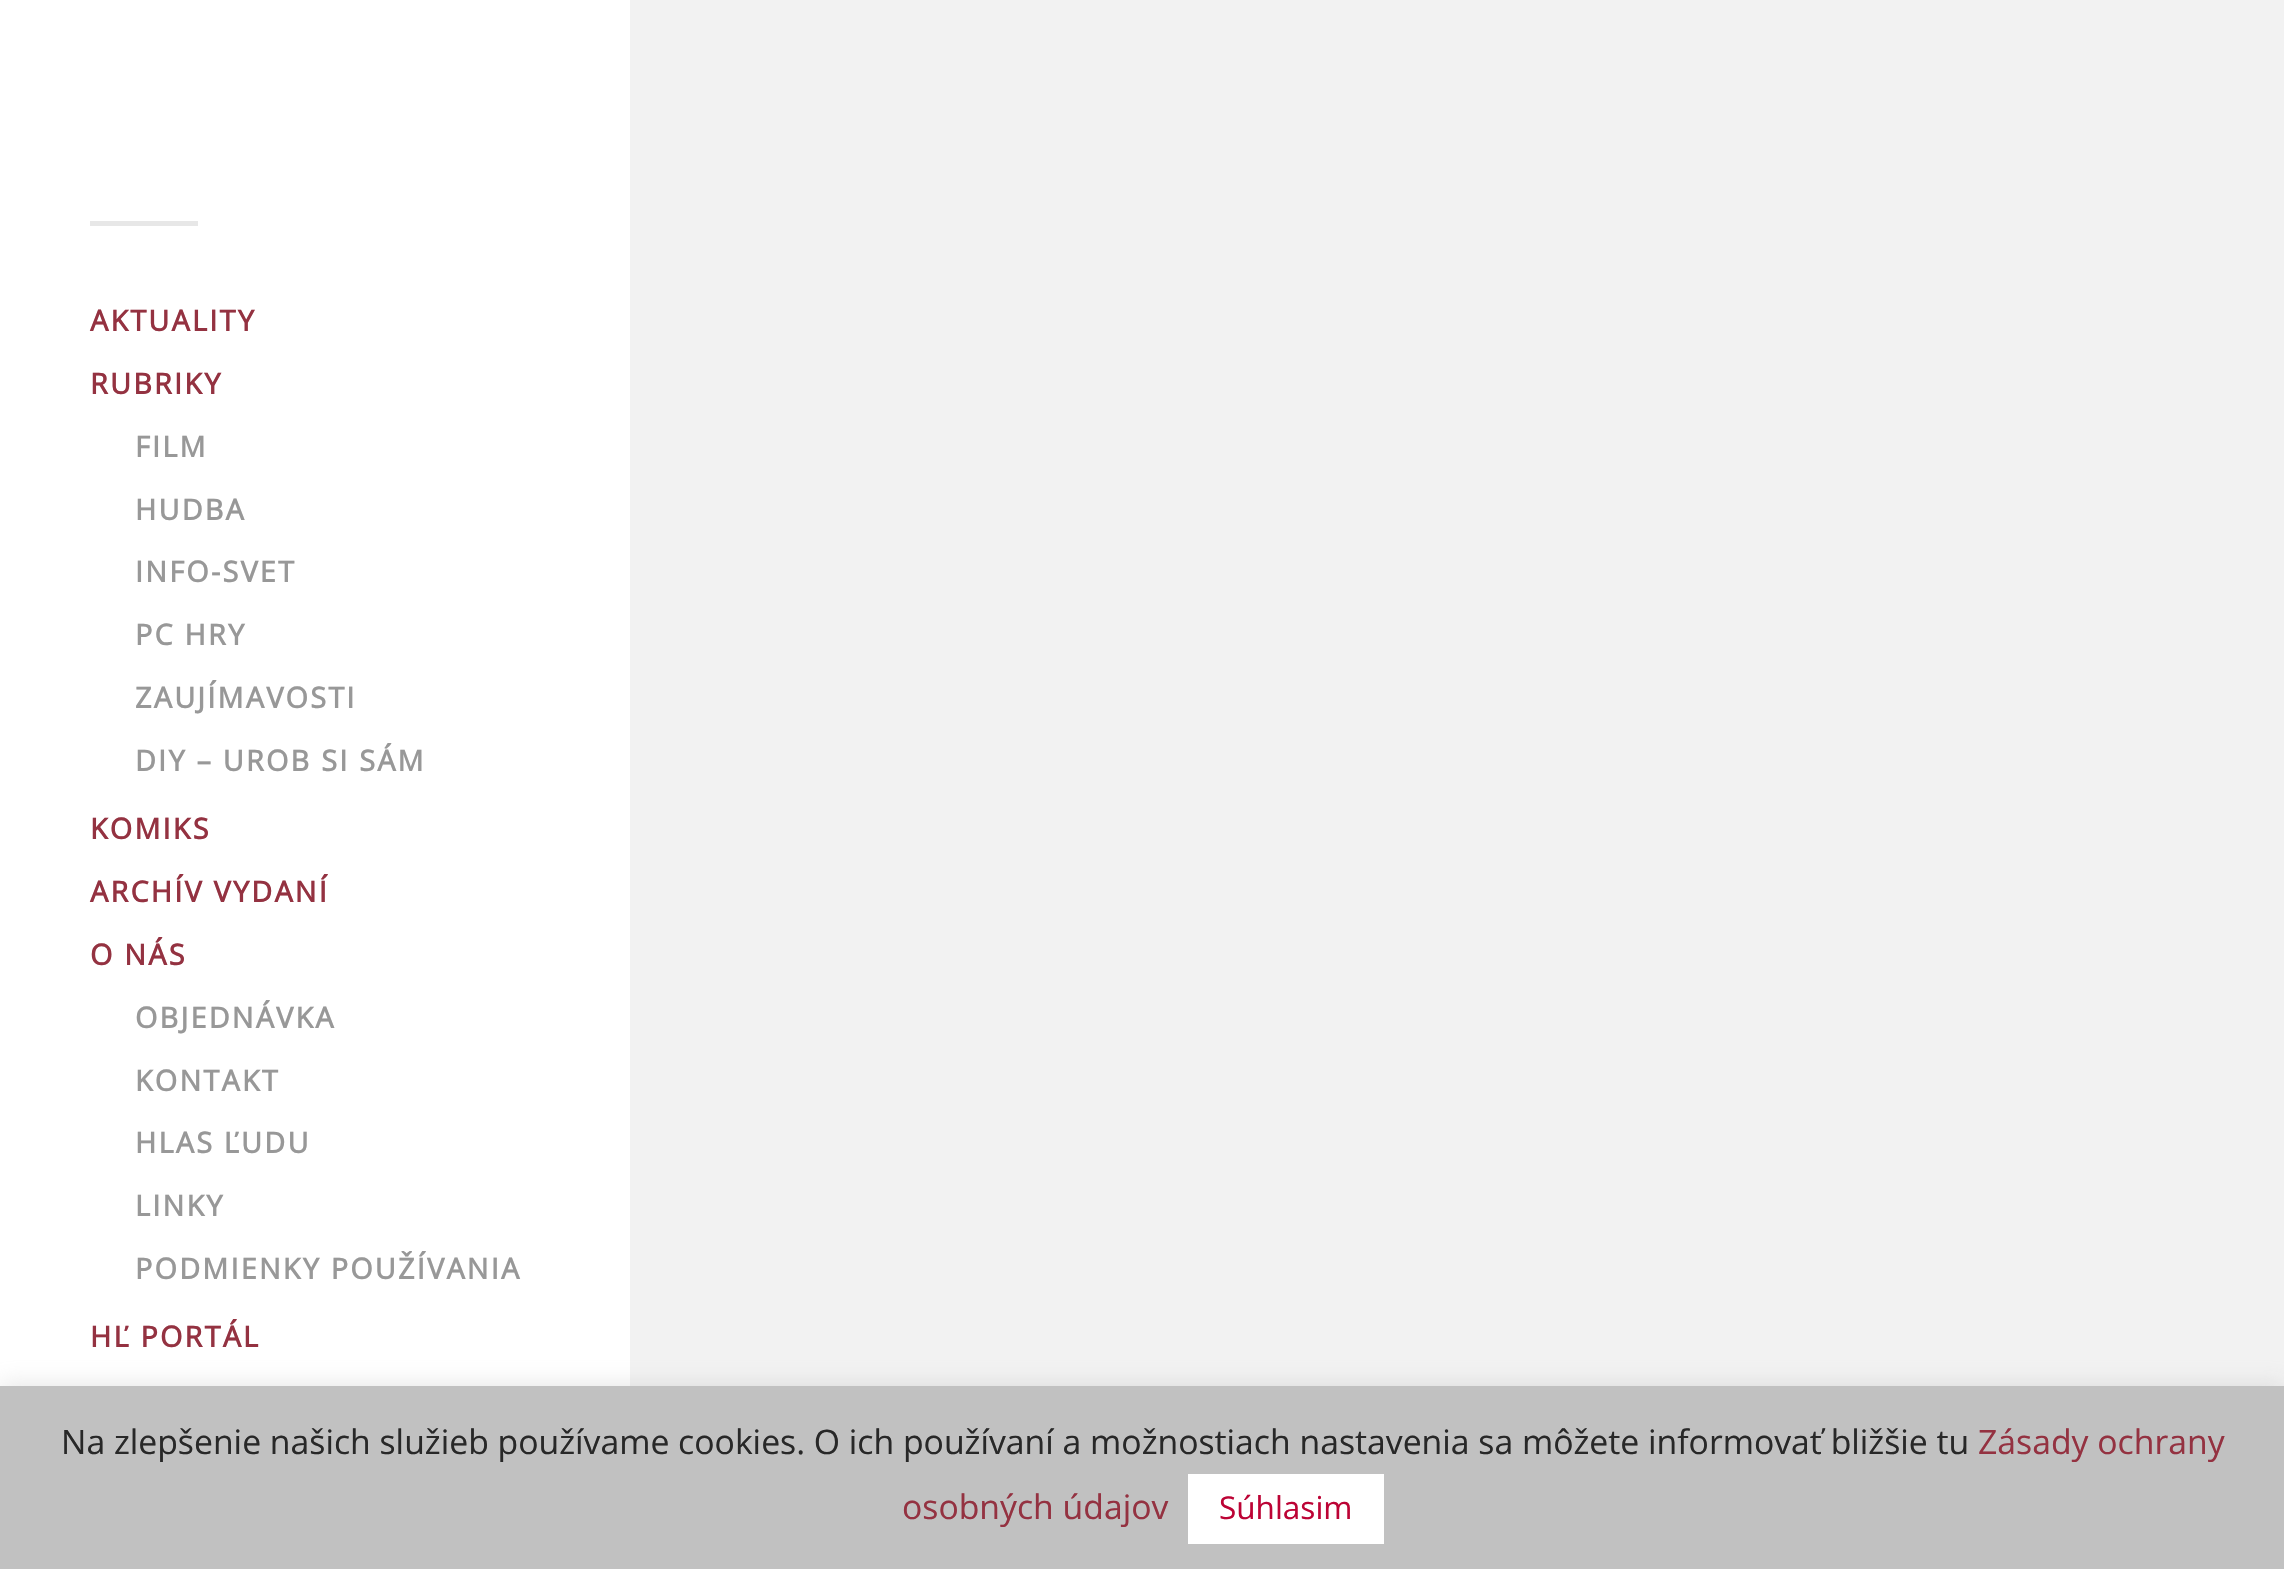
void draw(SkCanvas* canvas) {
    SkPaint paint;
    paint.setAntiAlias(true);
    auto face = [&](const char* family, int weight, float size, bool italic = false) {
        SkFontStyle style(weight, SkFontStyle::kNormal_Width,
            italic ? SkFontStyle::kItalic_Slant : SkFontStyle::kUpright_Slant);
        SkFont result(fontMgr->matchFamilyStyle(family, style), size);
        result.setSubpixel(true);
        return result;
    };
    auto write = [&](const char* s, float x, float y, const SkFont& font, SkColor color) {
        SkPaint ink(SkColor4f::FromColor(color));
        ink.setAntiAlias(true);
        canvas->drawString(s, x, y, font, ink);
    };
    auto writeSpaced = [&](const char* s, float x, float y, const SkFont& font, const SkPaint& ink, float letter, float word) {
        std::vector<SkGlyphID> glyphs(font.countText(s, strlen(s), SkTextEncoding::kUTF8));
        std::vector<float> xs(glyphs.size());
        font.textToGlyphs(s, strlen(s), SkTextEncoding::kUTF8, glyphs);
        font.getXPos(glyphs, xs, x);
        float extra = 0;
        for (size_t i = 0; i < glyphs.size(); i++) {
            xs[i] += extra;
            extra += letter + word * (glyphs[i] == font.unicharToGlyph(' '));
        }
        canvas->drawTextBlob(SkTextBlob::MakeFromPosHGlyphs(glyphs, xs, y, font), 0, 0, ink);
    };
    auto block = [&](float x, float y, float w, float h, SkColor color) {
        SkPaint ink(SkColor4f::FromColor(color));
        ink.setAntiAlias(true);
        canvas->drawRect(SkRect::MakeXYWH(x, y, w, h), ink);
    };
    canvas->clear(SkColorSetRGB(242, 242, 242));
    block(0, 0, 630, 1386, SK_ColorWHITE);
    block(90, 221, 108, 5, SkColorSetRGB(231, 231, 231));
    auto kFont1 = face("Open Sans", 700, 28.75f);
    paint.setColor(SkColorSetRGB(148, 50, 65));
    writeSpaced("AKTUALITY", 90, 331, kFont1, paint, 2.25f, 0);
    writeSpaced("RUBRIKY", 90, 394, kFont1, paint, 2.25f, 0);
    paint.setColor(SkColorSetRGB(152, 152, 152));
    writeSpaced("FILM", 135, 457, kFont1, paint, 2.25f, 0);
    writeSpaced("HUDBA", 135, 520, kFont1, paint, 2.25f, 0);
    writeSpaced("INFO-SVET", 135, 582, kFont1, paint, 2.25f, 0);
    writeSpaced("PC HRY", 135, 645, kFont1, paint, 2.25f, 0);
    writeSpaced("ZAUJÍMAVOSTI", 135, 708, kFont1, paint, 2.25f, 0);
    writeSpaced("DIY – UROB SI SÁM", 135, 771, kFont1, paint, 2.25f, 0);
    paint.setColor(SkColorSetRGB(148, 50, 65));
    writeSpaced("KOMIKS", 90, 839, kFont1, paint, 2.25f, 0);
    writeSpaced("ARCHÍV VYDANÍ", 90, 902, kFont1, paint, 2.25f, 0);
    writeSpaced("O NÁS", 90, 965, kFont1, paint, 2.25f, 0);
    paint.setColor(SkColorSetRGB(152, 152, 152));
    writeSpaced("OBJEDNÁVKA", 135, 1028, kFont1, paint, 2.25f, 0);
    writeSpaced("KONTAKT", 135, 1091, kFont1, paint, 2.25f, 0);
    writeSpaced("HLAS ĽUDU", 135, 1153, kFont1, paint, 2.25f, 0);
    writeSpaced("LINKY", 135, 1216, kFont1, paint, 2.25f, 0);
    writeSpaced("PODMIENKY POUŽÍVANIA", 135, 1279, kFont1, paint, 2.25f, 0);
    paint.setColor(SkColorSetRGB(148, 50, 65));
    writeSpaced("HĽ PORTÁL", 90, 1347, kFont1, paint, 2.25f, 0);
    paint.setColor(SkColorSetARGB(77, 172, 171, 171));
    paint.setMaskFilter(SkMaskFilter::MakeBlur(kNormal_SkBlurStyle, 11));
    canvas->drawRect(SkRect::MakeXYWH(0, 1384, 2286, 184), paint);
    paint.setMaskFilter(nullptr);
    block(0, 1386, 2284, 183, SkColorSetRGB(193, 193, 193));
    auto kFont2 = face("Open Sans", 400, 33.75f);
    write("Na zlepšenie našich služieb používame cookies. O ich používaní a možnostiach nastavenia sa môžete informovať bližšie tu", 61, 1454, kFont2, SkColorSetRGB(40, 40, 40));
    write("Zásady ochrany", 1978, 1454, kFont2, SkColorSetRGB(148, 50, 65));
    write("osobných údajov", 902, 1519, kFont2, SkColorSetRGB(148, 50, 65));
    block(1188, 1474, 196, 70, SK_ColorWHITE);
    auto kFont3 = face("Open Sans", 400, 31.5f);
    write("Súhlasim", 1219, 1519, kFont3, SkColorSetRGB(188, 3, 53));
}
